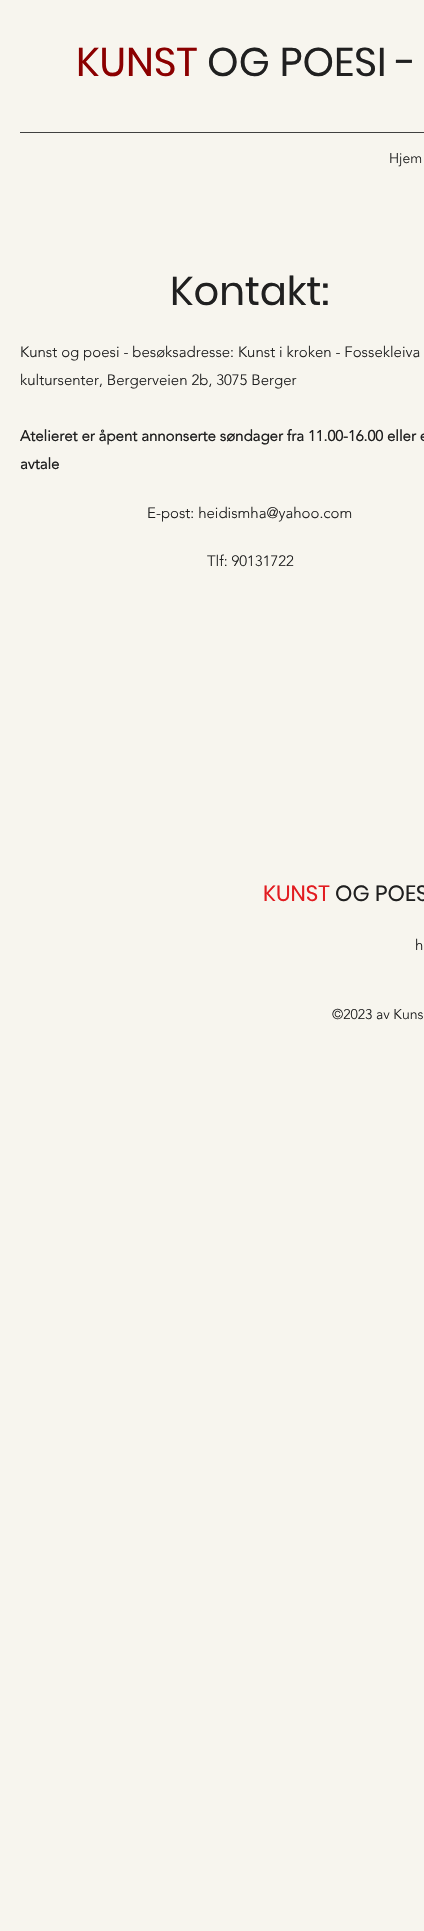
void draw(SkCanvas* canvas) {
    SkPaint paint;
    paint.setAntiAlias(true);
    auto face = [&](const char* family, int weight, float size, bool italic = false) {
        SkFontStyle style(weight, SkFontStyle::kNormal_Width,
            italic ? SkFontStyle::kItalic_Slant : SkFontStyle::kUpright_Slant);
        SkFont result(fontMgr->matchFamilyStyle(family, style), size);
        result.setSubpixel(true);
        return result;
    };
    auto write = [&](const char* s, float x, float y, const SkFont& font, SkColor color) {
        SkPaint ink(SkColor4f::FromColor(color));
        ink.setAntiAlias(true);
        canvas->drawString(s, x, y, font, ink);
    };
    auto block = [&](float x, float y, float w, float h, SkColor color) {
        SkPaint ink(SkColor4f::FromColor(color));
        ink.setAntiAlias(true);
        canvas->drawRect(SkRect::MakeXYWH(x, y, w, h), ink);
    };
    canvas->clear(SkColorSetRGB(247, 245, 238));
    auto kFont1 = face("Poppins", 400, 40);
    write("KUNST", 76, 76, kFont1, SkColorSetRGB(139, 0, 0));
    write("OG POESI -", 207, 76, kFont1, SkColorSetRGB(32, 32, 32));
    block(20, 132, 404, 1, SkColorSetRGB(64, 64, 63));
    auto kFont2 = face("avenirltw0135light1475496", 300, 14);
    write("Hjem", 389, 163, kFont2, SkColorSetRGB(32, 32, 32));
    write("Kontakt:", 170, 305, kFont1, SkColorSetRGB(32, 32, 32));
    auto kFont3 = face("avenirltw0135light1475496", 300, 15);
    write("Kunst og poesi - besøksadresse: Kunst i kroken - Fossekleiva", 20, 357, kFont3, SkColorSetRGB(32, 32, 32));
    write("kultursenter, Bergerveien 2b, 3075 Berger", 20, 385, kFont3, SkColorSetRGB(32, 32, 32));
    auto kFont4 = face("avenirltw0135light1475496", 700, 15);
    write("Atelieret er åpent annonserte søndager fra 11.00-16.00 eller e", 20, 441, kFont4, SkColorSetRGB(32, 32, 32));
    write("avtale", 20, 469, kFont4, SkColorSetRGB(32, 32, 32));
    write("E-post: heidismha@yahoo.com", 147, 518, kFont3, SkColorSetRGB(32, 32, 32));
    write("Tlf: 90131722", 207, 566, kFont3, SkColorSetRGB(32, 32, 32));
    auto kFont5 = face("Poppins", 400, 22);
    write("KUNST", 263, 901, kFont5, SkColorSetRGB(226, 28, 33));
    write("OG POES", 335, 901, kFont5, SkColorSetRGB(32, 32, 32));
    write("h", 415, 950, kFont3, SkColorSetRGB(32, 32, 32));
    write("©2023 av Kuns", 332, 1019, kFont2, SkColorSetRGB(32, 32, 32));
}
